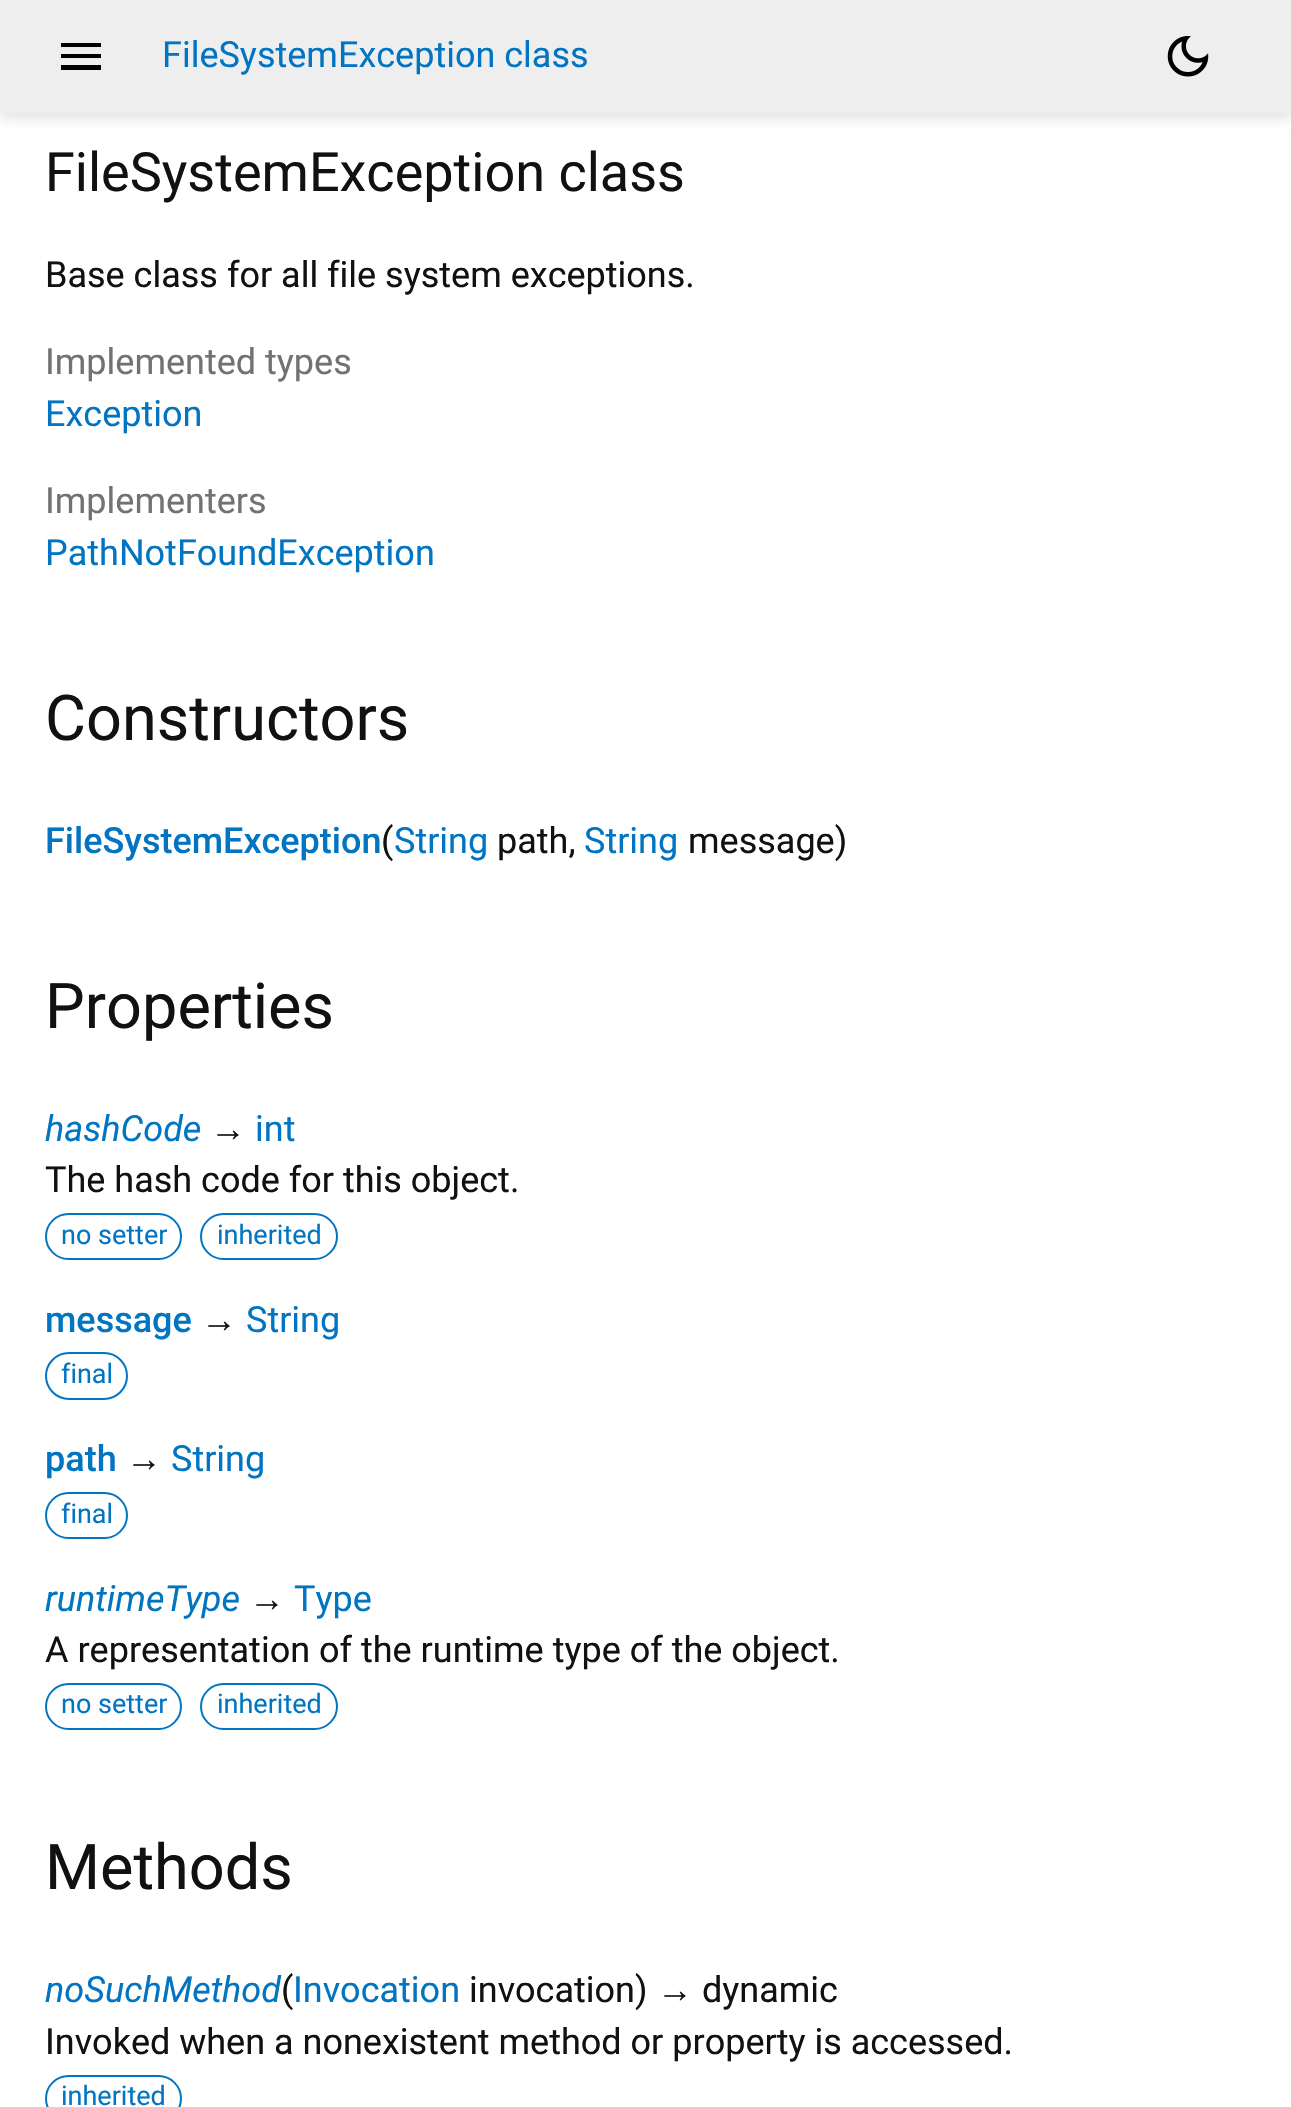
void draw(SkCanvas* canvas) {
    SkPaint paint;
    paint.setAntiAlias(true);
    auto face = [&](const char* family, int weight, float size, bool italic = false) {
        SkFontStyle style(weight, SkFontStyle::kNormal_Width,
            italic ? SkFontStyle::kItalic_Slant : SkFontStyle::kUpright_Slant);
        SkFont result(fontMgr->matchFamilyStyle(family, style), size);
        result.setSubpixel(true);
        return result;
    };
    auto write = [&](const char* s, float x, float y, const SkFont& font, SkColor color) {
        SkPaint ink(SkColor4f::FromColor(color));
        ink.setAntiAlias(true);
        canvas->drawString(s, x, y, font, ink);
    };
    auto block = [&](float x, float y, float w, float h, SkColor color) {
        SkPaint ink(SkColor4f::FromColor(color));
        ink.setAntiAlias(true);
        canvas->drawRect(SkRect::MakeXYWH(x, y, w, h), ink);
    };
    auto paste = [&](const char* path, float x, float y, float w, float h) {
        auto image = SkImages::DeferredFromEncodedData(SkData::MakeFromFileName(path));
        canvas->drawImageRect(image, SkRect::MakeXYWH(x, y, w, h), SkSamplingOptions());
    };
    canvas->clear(SK_ColorWHITE);
    paint.setColor(SkColorSetARGB(26, 0, 0, 0));
    paint.setMaskFilter(SkMaskFilter::MakeBlur(kNormal_SkBlurStyle, 5.5f));
    canvas->drawRect(SkRect::MakeXYWH(0, 7, 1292, 112), paint);
    paint.setMaskFilter(nullptr);
    block(0, 0, 1291, 113, SkColorSetRGB(238, 238, 238));
    paint.setColor(SK_ColorBLACK);
    canvas->drawPath(SkPathBuilder().moveTo(61, 70).lineTo(61, 65).lineTo(101, 65).lineTo(101, 70).close().moveTo(61, 58).lineTo(61, 54).lineTo(101, 54).lineTo(101, 58).close().moveTo(61, 47).lineTo(61, 43).lineTo(101, 43).lineTo(101, 47).close().detach(), paint);
    auto kFont1 = face("Roboto", 400, 36);
    write("FileSystemException class", 162, 67, kFont1, SkColorSetRGB(1, 117, 194));
    paste("pic1.png", 1167, 36, 42, 41);
    auto kFont2 = face("Roboto", 400, 54);
    write("FileSystemException class", 45, 191, kFont2, SkColorSetRGB(17, 17, 17));
    write("Base class for all file system exceptions.", 45, 287, kFont1, SkColorSetRGB(17, 17, 17));
    write("Implemented types", 45, 374, kFont1, SkColorSetRGB(114, 114, 114));
    write("Exception", 45, 426, kFont1, SkColorSetRGB(1, 117, 194));
    write("Implementers", 45, 513, kFont1, SkColorSetRGB(114, 114, 114));
    write("PathNotFoundException", 45, 565, kFont1, SkColorSetRGB(1, 117, 194));
    auto kFont3 = face("Roboto", 400, 63);
    write("Constructors", 45, 740, kFont3, SkColorSetRGB(17, 17, 17));
    auto kFont4 = face("Roboto", 500, 36);
    write("FileSystemException", 45, 853, kFont4, SkColorSetRGB(1, 117, 194));
    write("(", 381, 853, kFont1, SkColorSetRGB(17, 17, 17));
    write("String", 394, 853, kFont1, SkColorSetRGB(1, 117, 194));
    write("path,", 497, 853, kFont1, SkColorSetRGB(17, 17, 17));
    write("String", 584, 853, kFont1, SkColorSetRGB(1, 117, 194));
    write("message)", 688, 853, kFont1, SkColorSetRGB(17, 17, 17));
    write("Properties", 45, 1028, kFont3, SkColorSetRGB(17, 17, 17));
    auto kFont5 = face("Roboto", 400, 36, true);
    write("hashCode", 45, 1141, kFont5, SkColorSetRGB(1, 117, 194));
    auto kFont6 = face("Liberation Sans", 400, 36);
    write("→", 210, 1141, kFont6, SkColorSetRGB(17, 17, 17));
    write("int", 255, 1141, kFont1, SkColorSetRGB(1, 117, 194));
    write("The hash code for this object.", 45, 1192, kFont1, SkColorSetRGB(17, 17, 17));
    paint.setStyle(SkPaint::kStroke_Style);
    paint.setStrokeWidth(2);
    paint.setColor(SkColorSetRGB(1, 117, 194));
    canvas->drawRoundRect(SkRect::MakeXYWH(46, 1214, 135, 45), 22.5f, 22.5f, paint);
    auto kFont7 = face("Roboto", 400, 27);
    write("no setter", 61, 1244, kFont7, SkColorSetRGB(1, 117, 194));
    canvas->drawRoundRect(SkRect::MakeXYWH(201, 1214, 136, 45), 22.5f, 22.5f, paint);
    write("inherited", 217, 1244, kFont7, SkColorSetRGB(1, 117, 194));
    write("message", 45, 1332, kFont4, SkColorSetRGB(1, 117, 194));
    write("→", 201, 1332, kFont6, SkColorSetRGB(17, 17, 17));
    write("String", 246, 1332, kFont1, SkColorSetRGB(1, 117, 194));
    canvas->drawRoundRect(SkRect::MakeXYWH(46, 1353, 81, 46), 23, 23, paint);
    write("final", 61, 1383, kFont7, SkColorSetRGB(1, 117, 194));
    write("path", 45, 1471, kFont4, SkColorSetRGB(1, 117, 194));
    write("→", 126, 1471, kFont6, SkColorSetRGB(17, 17, 17));
    write("String", 171, 1471, kFont1, SkColorSetRGB(1, 117, 194));
    canvas->drawRoundRect(SkRect::MakeXYWH(46, 1493, 81, 45), 22.5f, 22.5f, paint);
    write("final", 61, 1523, kFont7, SkColorSetRGB(1, 117, 194));
    write("runtimeType", 45, 1611, kFont5, SkColorSetRGB(1, 117, 194));
    write("→", 249, 1611, kFont6, SkColorSetRGB(17, 17, 17));
    write("Type", 294, 1611, kFont1, SkColorSetRGB(1, 117, 194));
    write("A representation of the runtime type of the object.", 45, 1662, kFont1, SkColorSetRGB(17, 17, 17));
    canvas->drawRoundRect(SkRect::MakeXYWH(46, 1684, 135, 45), 22.5f, 22.5f, paint);
    write("no setter", 61, 1713, kFont7, SkColorSetRGB(1, 117, 194));
    canvas->drawRoundRect(SkRect::MakeXYWH(201, 1684, 136, 45), 22.5f, 22.5f, paint);
    write("inherited", 217, 1713, kFont7, SkColorSetRGB(1, 117, 194));
    write("Methods", 45, 1889, kFont3, SkColorSetRGB(17, 17, 17));
    write("noSuchMethod", 45, 2002, kFont5, SkColorSetRGB(1, 117, 194));
    write("(", 281, 2002, kFont1, SkColorSetRGB(17, 17, 17));
    write("Invocation", 293, 2002, kFont1, SkColorSetRGB(1, 117, 194));
    write("invocation)", 469, 2002, kFont1, SkColorSetRGB(17, 17, 17));
    write("→", 657, 2002, kFont6, SkColorSetRGB(17, 17, 17));
    write("dynamic", 702, 2002, kFont1, SkColorSetRGB(17, 17, 17));
    write("Invoked when a nonexistent method or property is accessed.", 45, 2054, kFont1, SkColorSetRGB(17, 17, 17));
    canvas->drawRoundRect(SkRect::MakeXYWH(46, 2076, 135, 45), 22.5f, 22.5f, paint);
    write("inherited", 61, 2105, kFont7, SkColorSetRGB(1, 117, 194));
}
